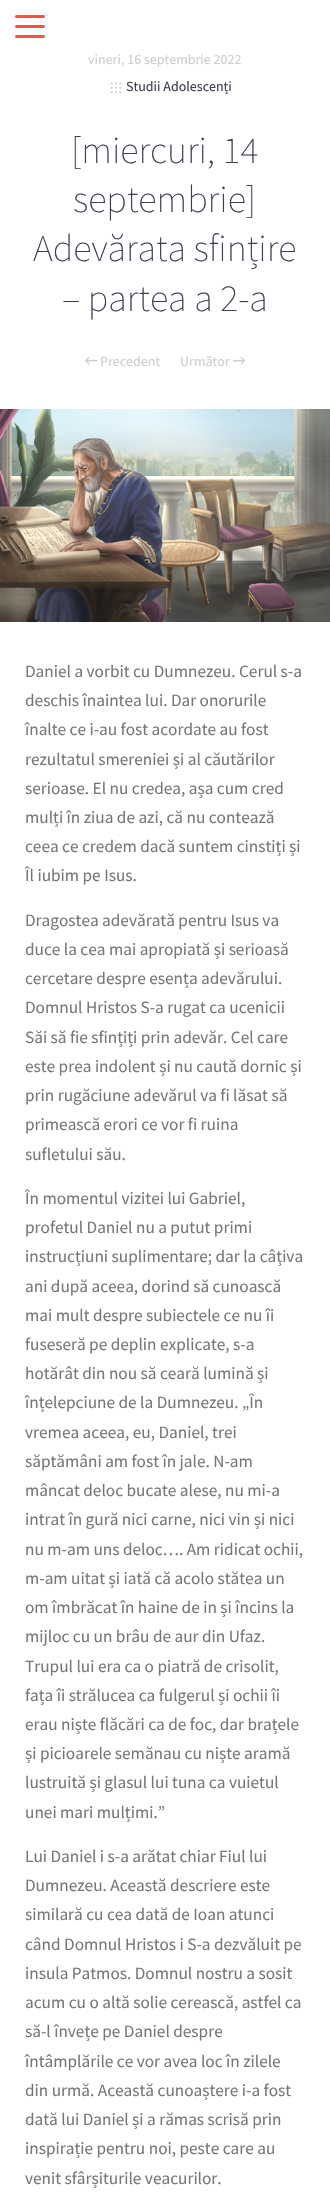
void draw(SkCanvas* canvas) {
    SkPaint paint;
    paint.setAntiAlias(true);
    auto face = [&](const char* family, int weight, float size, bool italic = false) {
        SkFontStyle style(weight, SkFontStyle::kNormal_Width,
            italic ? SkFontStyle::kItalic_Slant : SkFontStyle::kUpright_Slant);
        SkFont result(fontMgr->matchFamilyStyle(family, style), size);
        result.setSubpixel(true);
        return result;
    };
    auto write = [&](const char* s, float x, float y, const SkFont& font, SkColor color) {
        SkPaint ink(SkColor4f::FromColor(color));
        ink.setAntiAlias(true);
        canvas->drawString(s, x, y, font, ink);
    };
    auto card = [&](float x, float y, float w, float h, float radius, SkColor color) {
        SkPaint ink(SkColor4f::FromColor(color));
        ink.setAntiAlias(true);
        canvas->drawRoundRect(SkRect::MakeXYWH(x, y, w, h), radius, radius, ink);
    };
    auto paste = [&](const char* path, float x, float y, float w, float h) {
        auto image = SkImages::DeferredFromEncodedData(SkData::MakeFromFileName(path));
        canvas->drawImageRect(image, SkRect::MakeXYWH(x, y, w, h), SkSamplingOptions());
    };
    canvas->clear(SK_ColorWHITE);
    card(15, 25, 30, 3, 1.5f, SkColorSetRGB(255, 77, 77));
    card(15, 15, 30, 3, 1.5f, SkColorSetRGB(255, 77, 77));
    card(15, 35, 30, 3, 1.5f, SkColorSetRGB(255, 77, 77));
    auto kFont1 = face("Source Sans Pro", 400, 14);
    write("vineri, 16 septembrie 2022", 88, 64, kFont1, SkColorSetRGB(206, 206, 206));
    paste("pic1.png", 110, 82, 12, 12);
    write("Studii Adolescenți", 126, 91, kFont1, SkColorSetRGB(63, 63, 83));
    auto kFont2 = face("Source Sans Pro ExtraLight", 200, 38);
    write("[miercuri, 14", 71, 163, kFont2, SkColorSetRGB(63, 63, 83));
    write("septembrie]", 73, 212, kFont2, SkColorSetRGB(63, 63, 83));
    write("Adevărata sfințire", 33, 261, kFont2, SkColorSetRGB(63, 63, 83));
    write("– partea a 2-a", 62, 311, kFont2, SkColorSetRGB(63, 63, 83));
    paste("pic2.png", 85, 357, 13, 8);
    write("Precedent", 100, 366, kFont1, SkColorSetRGB(206, 206, 206));
    write("Următor", 180, 366, kFont1, SkColorSetRGB(206, 206, 206));
    paste("pic3.png", 233, 357, 13, 8);
    paste("pic4.png", 0, 409, 330, 213);
    auto kFont3 = face("Source Sans Pro", 400, 17.25f);
    write("Daniel a vorbit cu Dumnezeu. Cerul s-a", 25, 677, kFont3, SkColorSetRGB(119, 119, 119));
    write("deschis înaintea lui. Dar onorurile", 25, 706, kFont3, SkColorSetRGB(119, 119, 119));
    write("înalte ce i-au fost acordate au fost", 25, 735, kFont3, SkColorSetRGB(119, 119, 119));
    write("rezultatul smereniei și al căutărilor", 25, 765, kFont3, SkColorSetRGB(119, 119, 119));
    write("serioase. El nu credea, așa cum cred", 25, 794, kFont3, SkColorSetRGB(119, 119, 119));
    write("mulți în ziua de azi, că nu contează", 25, 823, kFont3, SkColorSetRGB(119, 119, 119));
    write("ceea ce credem dacă suntem cinstiți și", 25, 852, kFont3, SkColorSetRGB(119, 119, 119));
    write("Îl iubim pe Isus.", 25, 881, kFont3, SkColorSetRGB(119, 119, 119));
    write("Dragostea adevărată pentru Isus va", 25, 926, kFont3, SkColorSetRGB(119, 119, 119));
    write("duce la cea mai apropiată și serioasă", 25, 955, kFont3, SkColorSetRGB(119, 119, 119));
    write("cercetare despre esența adevărului.", 25, 984, kFont3, SkColorSetRGB(119, 119, 119));
    write("Domnul Hristos S-a rugat ca ucenicii", 25, 1013, kFont3, SkColorSetRGB(119, 119, 119));
    write("Săi să fie sfințiți prin adevăr. Cel care", 25, 1043, kFont3, SkColorSetRGB(119, 119, 119));
    write("este prea indolent și nu caută dornic și", 25, 1072, kFont3, SkColorSetRGB(119, 119, 119));
    write("prin rugăciune adevărul va fi lăsat să", 25, 1101, kFont3, SkColorSetRGB(119, 119, 119));
    write("primească erori ce vor fi ruina", 25, 1130, kFont3, SkColorSetRGB(119, 119, 119));
    write("sufletului său.", 25, 1160, kFont3, SkColorSetRGB(119, 119, 119));
    write("În momentul vizitei lui Gabriel,", 25, 1204, kFont3, SkColorSetRGB(119, 119, 119));
    write("profetul Daniel nu a putut primi", 25, 1233, kFont3, SkColorSetRGB(119, 119, 119));
    write("instrucțiuni suplimentare; dar la câțiva", 25, 1262, kFont3, SkColorSetRGB(119, 119, 119));
    write("ani după aceea, dorind să cunoască", 25, 1292, kFont3, SkColorSetRGB(119, 119, 119));
    write("mai mult despre subiectele ce nu îi", 25, 1321, kFont3, SkColorSetRGB(119, 119, 119));
    write("fuseseră pe deplin explicate, s-a", 25, 1350, kFont3, SkColorSetRGB(119, 119, 119));
    write("hotărât din nou să ceară lumină și", 25, 1379, kFont3, SkColorSetRGB(119, 119, 119));
    write("înțelepciune de la Dumnezeu. „În", 25, 1408, kFont3, SkColorSetRGB(119, 119, 119));
    write("vremea aceea, eu, Daniel, trei", 25, 1438, kFont3, SkColorSetRGB(119, 119, 119));
    write("săptămâni am fost în jale. N-am", 25, 1467, kFont3, SkColorSetRGB(119, 119, 119));
    write("mâncat deloc bucate alese, nu mi-a", 25, 1496, kFont3, SkColorSetRGB(119, 119, 119));
    write("intrat în gură nici carne, nici vin și nici", 25, 1525, kFont3, SkColorSetRGB(119, 119, 119));
    write("nu m-am uns deloc…. Am ridicat ochii,", 25, 1555, kFont3, SkColorSetRGB(119, 119, 119));
    write("m-am uitat și iată că acolo stătea un", 25, 1584, kFont3, SkColorSetRGB(119, 119, 119));
    write("om îmbrăcat în haine de in și încins la", 25, 1613, kFont3, SkColorSetRGB(119, 119, 119));
    write("mijloc cu un brâu de aur din Ufaz.", 25, 1642, kFont3, SkColorSetRGB(119, 119, 119));
    write("Trupul lui era ca o piatră de crisolit,", 25, 1672, kFont3, SkColorSetRGB(119, 119, 119));
    write("fața îi strălucea ca fulgerul și ochii îi", 25, 1701, kFont3, SkColorSetRGB(119, 119, 119));
    write("erau niște flăcări ca de foc, dar brațele", 25, 1730, kFont3, SkColorSetRGB(119, 119, 119));
    write("și picioarele semănau cu niște aramă", 25, 1759, kFont3, SkColorSetRGB(119, 119, 119));
    write("lustruită și glasul lui tuna ca vuietul", 25, 1788, kFont3, SkColorSetRGB(119, 119, 119));
    write("unei mari mulțimi.”", 25, 1818, kFont3, SkColorSetRGB(119, 119, 119));
    write("Lui Daniel i s-a arătat chiar Fiul lui", 25, 1862, kFont3, SkColorSetRGB(119, 119, 119));
    write("Dumnezeu. Această descriere este", 25, 1891, kFont3, SkColorSetRGB(119, 119, 119));
    write("similară cu cea dată de Ioan atunci", 25, 1920, kFont3, SkColorSetRGB(119, 119, 119));
    write("când Domnul Hristos i S-a dezvăluit pe", 25, 1950, kFont3, SkColorSetRGB(119, 119, 119));
    write("insula Patmos. Domnul nostru a sosit", 25, 1979, kFont3, SkColorSetRGB(119, 119, 119));
    write("acum cu o altă solie cerească, astfel ca", 25, 2008, kFont3, SkColorSetRGB(119, 119, 119));
    write("să-l învețe pe Daniel despre", 25, 2037, kFont3, SkColorSetRGB(119, 119, 119));
    write("întâmplările ce vor avea loc în zilele", 25, 2067, kFont3, SkColorSetRGB(119, 119, 119));
    write("din urmă. Această cunoaștere i-a fost", 25, 2096, kFont3, SkColorSetRGB(119, 119, 119));
    write("dată lui Daniel și a rămas scrisă prin", 25, 2125, kFont3, SkColorSetRGB(119, 119, 119));
    write("inspirație pentru noi, peste care au", 25, 2154, kFont3, SkColorSetRGB(119, 119, 119));
    write("venit sfârșiturile veacurilor.", 25, 2184, kFont3, SkColorSetRGB(119, 119, 119));
}
